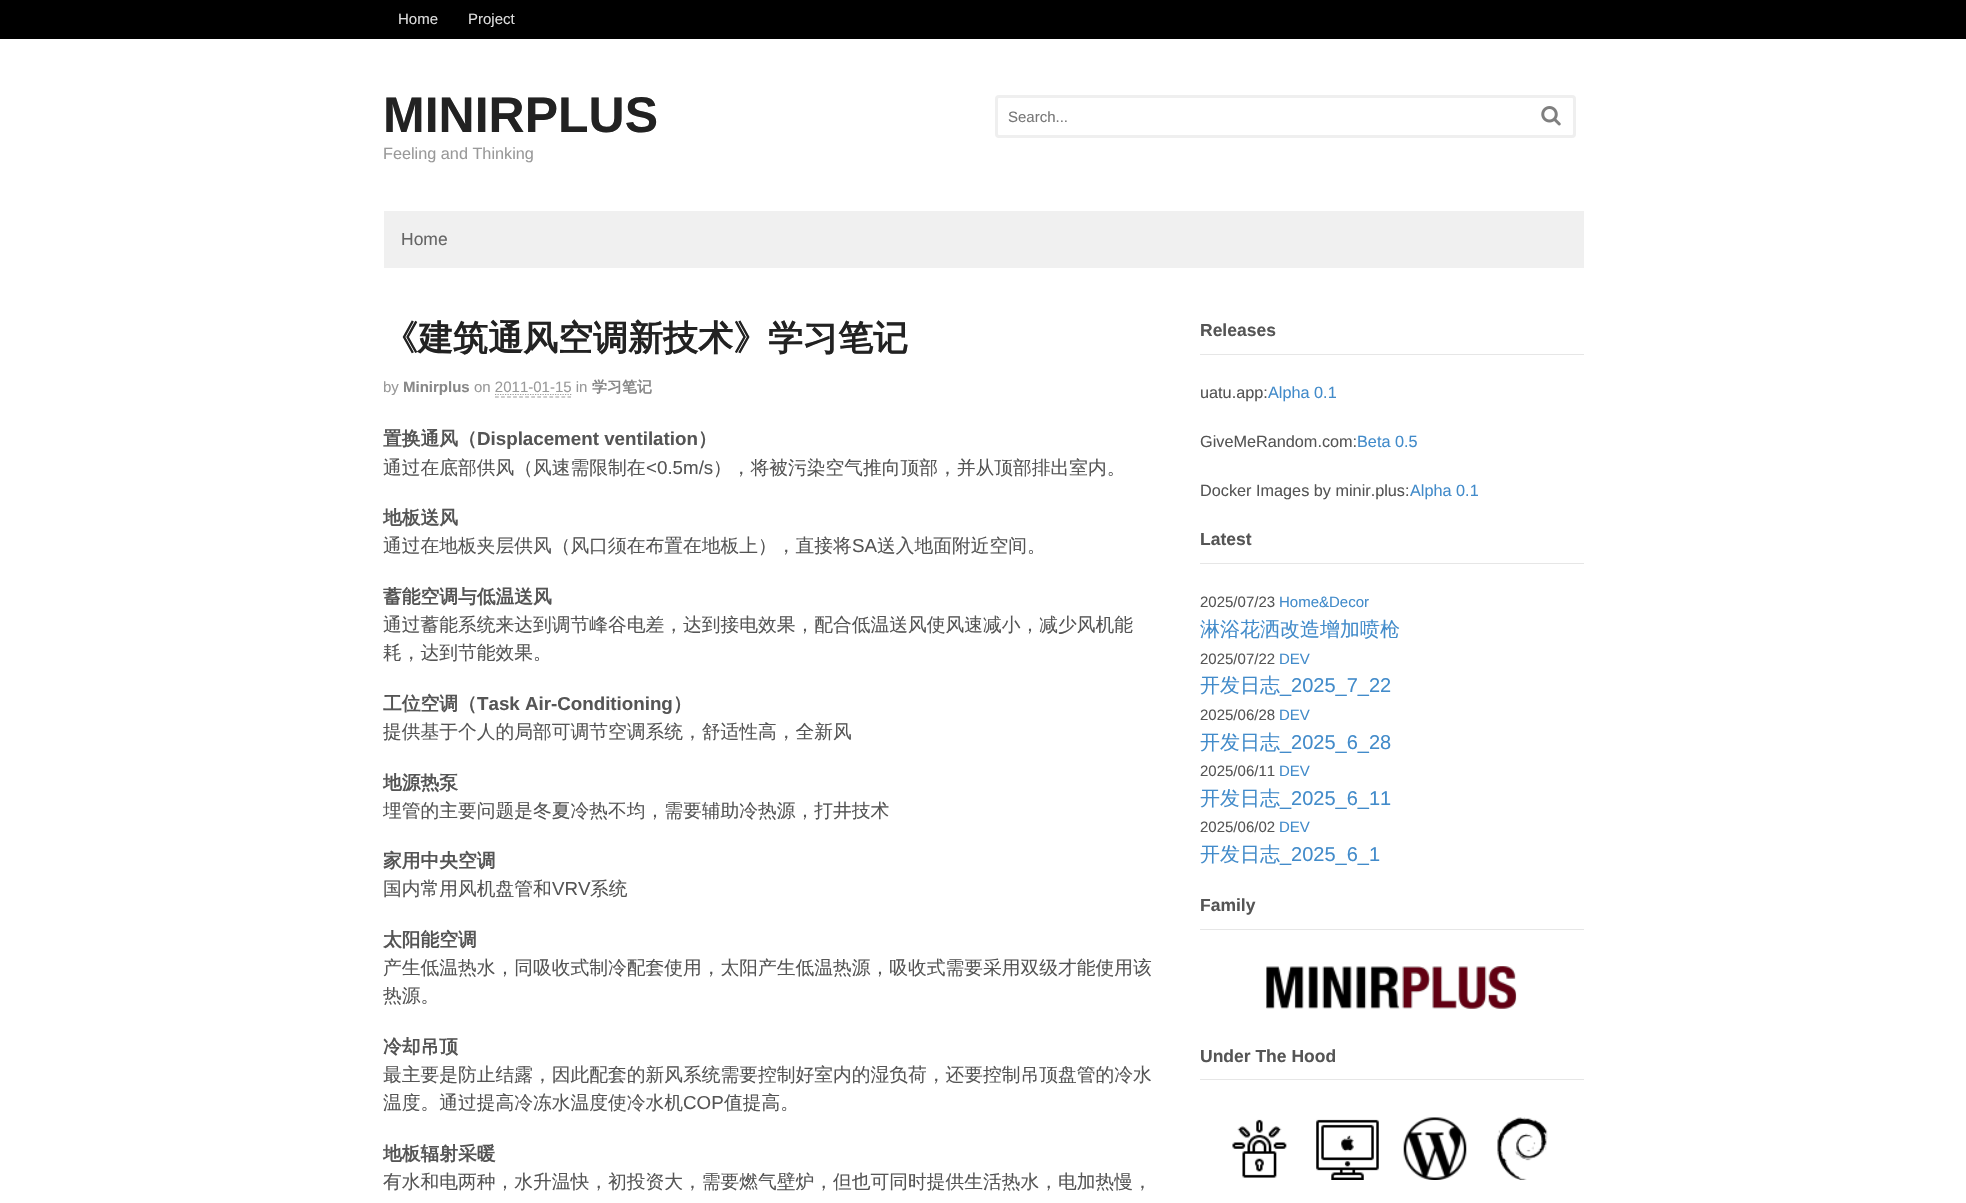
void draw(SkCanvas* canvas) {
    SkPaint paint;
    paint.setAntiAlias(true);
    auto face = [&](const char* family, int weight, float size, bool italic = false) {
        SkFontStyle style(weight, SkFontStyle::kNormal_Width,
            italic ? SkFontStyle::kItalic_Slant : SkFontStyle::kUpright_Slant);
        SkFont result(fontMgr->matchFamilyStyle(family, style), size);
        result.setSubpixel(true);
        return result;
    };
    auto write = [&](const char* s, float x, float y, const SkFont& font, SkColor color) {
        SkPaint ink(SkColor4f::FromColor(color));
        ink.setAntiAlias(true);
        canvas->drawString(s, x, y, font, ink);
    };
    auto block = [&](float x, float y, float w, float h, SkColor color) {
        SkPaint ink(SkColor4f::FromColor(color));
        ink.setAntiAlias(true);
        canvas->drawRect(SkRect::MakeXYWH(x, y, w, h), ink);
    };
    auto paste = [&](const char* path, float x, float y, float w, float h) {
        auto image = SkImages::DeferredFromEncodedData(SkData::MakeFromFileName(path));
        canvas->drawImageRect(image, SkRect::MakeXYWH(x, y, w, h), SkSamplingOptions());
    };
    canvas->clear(SK_ColorWHITE);
    block(0, 0, 1966, 39, SK_ColorBLACK);
    auto kFont1 = face("Liberation Sans", 400, 15);
    write("Home", 398, 24, kFont1, SkColorSetRGB(221, 221, 221));
    write("Project", 468, 24, kFont1, SkColorSetRGB(221, 221, 221));
    auto kFont2 = face("Liberation Sans", 700, 50);
    write("MINIRPLUS", 383, 132, kFont2, SkColorSetRGB(34, 34, 34));
    auto kFont3 = face("Liberation Sans", 400, 16.25f);
    write("Feeling and Thinking", 383, 159, kFont3, SkColorSetRGB(153, 153, 153));
    paint.setStyle(SkPaint::kStroke_Style);
    paint.setStrokeWidth(3);
    paint.setColor(SkColorSetRGB(239, 239, 239));
    canvas->drawRoundRect(SkRect::MakeXYWH(996.5f, 96.5f, 578, 40), 2.5f, 2.5f, paint);
    write("Search...", 1008, 122, kFont1, SkColorSetRGB(119, 119, 119));
    paste("pic1.png", 1541, 106, 20, 20);
    block(384, 211, 1200, 57, SkColorSetRGB(240, 240, 240));
    auto kFont4 = face("Liberation Sans", 400, 17.5f);
    write("Home", 401, 245, kFont4, SkColorSetRGB(102, 102, 102));
    auto kFont5 = face("WenQuanYi Zen Hei", 700, 35);
    write("《建筑通风空调新技术》学习笔记", 383, 350, kFont5, SkColorSetRGB(34, 34, 34));
    write("by", 383, 392, kFont1, SkColorSetRGB(153, 153, 153));
    auto kFont6 = face("Liberation Sans", 700, 15);
    write("Minirplus", 403, 392, kFont6, SkColorSetRGB(136, 136, 136));
    write("on 2011-01-15 in", 474, 392, kFont1, SkColorSetRGB(153, 153, 153));
    auto kFont7 = face("WenQuanYi Zen Hei", 700, 15);
    write("学习笔记", 592, 392, kFont7, SkColorSetRGB(136, 136, 136));
    paint.setStrokeWidth(1.2f);
    paint.setColor(SkColorSetRGB(153, 153, 153));
    paint.setPathEffect(SkDashPathEffect::Make({{1.25f, 1.25f}}, 0));
    canvas->drawPath(SkPathBuilder().moveTo(495, 394.5f).lineTo(571.5f, 394.5f).detach(), paint);
    paint.setPathEffect(nullptr);
    paint.setPathEffect(SkDashPathEffect::Make({{3.75f, 2.29f}}, 0));
    canvas->drawPath(SkPathBuilder().moveTo(495, 397).lineTo(571, 397).detach(), paint);
    paint.setPathEffect(nullptr);
    auto kFont8 = face("WenQuanYi Zen Hei", 700, 18.75f);
    write("置换通风（", 383, 445, kFont8, SkColorSetRGB(85, 85, 85));
    auto kFont9 = face("Liberation Sans", 700, 18.75f);
    write("Displacement ventilation", 477, 445, kFont9, SkColorSetRGB(85, 85, 85));
    write("）", 698, 445, kFont8, SkColorSetRGB(85, 85, 85));
    auto kFont10 = face("WenQuanYi Zen Hei", 500, 18.75f);
    write("通过在底部供风（风速需限制在", 383, 474, kFont10, SkColorSetRGB(85, 85, 85));
    auto kFont11 = face("Liberation Sans", 400, 18.75f);
    write("<0.5m/s", 646, 474, kFont11, SkColorSetRGB(85, 85, 85));
    write("），将被污染空气推向顶部，并从顶部排出室内。", 713, 474, kFont10, SkColorSetRGB(85, 85, 85));
    write("地板送风", 383, 524, kFont8, SkColorSetRGB(85, 85, 85));
    write("通过在地板夹层供风（风口须在布置在地板上），直接将", 383, 552, kFont10, SkColorSetRGB(85, 85, 85));
    write("SA", 852, 552, kFont11, SkColorSetRGB(85, 85, 85));
    write("送入地面附近空间。", 877, 552, kFont10, SkColorSetRGB(85, 85, 85));
    write("蓄能空调与低温送风", 383, 603, kFont8, SkColorSetRGB(85, 85, 85));
    write("通过蓄能系统来达到调节峰谷电差，达到接电效果，配合低温送风使风速减小，减少风机能", 383, 631, kFont10, SkColorSetRGB(85, 85, 85));
    write("耗，达到节能效果。", 383, 659, kFont10, SkColorSetRGB(85, 85, 85));
    write("工位空调（", 383, 710, kFont8, SkColorSetRGB(85, 85, 85));
    write("Task Air-Conditioning", 477, 710, kFont9, SkColorSetRGB(85, 85, 85));
    write("）", 673, 710, kFont8, SkColorSetRGB(85, 85, 85));
    write("提供基于个人的局部可调节空调系统，舒适性高，全新风", 383, 738, kFont10, SkColorSetRGB(85, 85, 85));
    write("地源热泵", 383, 789, kFont8, SkColorSetRGB(85, 85, 85));
    write("埋管的主要问题是冬夏冷热不均，需要辅助冷热源，打井技术", 383, 817, kFont10, SkColorSetRGB(85, 85, 85));
    write("家用中央空调", 383, 867, kFont8, SkColorSetRGB(85, 85, 85));
    write("国内常用风机盘管和", 383, 895, kFont10, SkColorSetRGB(85, 85, 85));
    write("VRV", 552, 895, kFont11, SkColorSetRGB(85, 85, 85));
    write("系统", 590, 895, kFont10, SkColorSetRGB(85, 85, 85));
    write("太阳能空调", 383, 946, kFont8, SkColorSetRGB(85, 85, 85));
    write("产生低温热水，同吸收式制冷配套使用，太阳产生低温热源，吸收式需要采用双级才能使用该", 383, 974, kFont10, SkColorSetRGB(85, 85, 85));
    write("热源。", 383, 1002, kFont10, SkColorSetRGB(85, 85, 85));
    write("冷却吊顶", 383, 1053, kFont8, SkColorSetRGB(85, 85, 85));
    write("最主要是防止结露，因此配套的新风系统需要控制好室内的湿负荷，还要控制吊顶盘管的冷水", 383, 1081, kFont10, SkColorSetRGB(85, 85, 85));
    write("温度。通过提高冷冻水温度使冷水机", 383, 1109, kFont10, SkColorSetRGB(85, 85, 85));
    write("COP", 683, 1109, kFont11, SkColorSetRGB(85, 85, 85));
    write("值提高。", 724, 1109, kFont10, SkColorSetRGB(85, 85, 85));
    write("地板辐射采暖", 383, 1160, kFont8, SkColorSetRGB(85, 85, 85));
    write("有水和电两种，水升温快，初投资大，需要燃气壁炉，但也可同时提供生活热水，电加热慢，", 383, 1188, kFont10, SkColorSetRGB(85, 85, 85));
    block(1200, 354, 384, 1, SkColorSetRGB(230, 230, 230));
    auto kFont12 = face("Liberation Sans", 700, 17.5f);
    write("Releases", 1200, 336, kFont12, SkColorSetRGB(85, 85, 85));
    write("uatu.app:", 1200, 398, kFont3, SkColorSetRGB(85, 85, 85));
    write("Alpha 0.1", 1268, 398, kFont3, SkColorSetRGB(66, 139, 202));
    write("GiveMeRandom.com:", 1200, 447, kFont3, SkColorSetRGB(85, 85, 85));
    write("Beta 0.5", 1357, 447, kFont3, SkColorSetRGB(66, 139, 202));
    write("Docker Images by minir.plus:", 1200, 496, kFont3, SkColorSetRGB(85, 85, 85));
    write("Alpha 0.1", 1410, 496, kFont3, SkColorSetRGB(66, 139, 202));
    block(1200, 563, 384, 1, SkColorSetRGB(230, 230, 230));
    write("Latest", 1200, 545, kFont12, SkColorSetRGB(85, 85, 85));
    write("2025/07/23", 1200, 607, kFont1, SkColorSetRGB(85, 85, 85));
    write("Home&Decor", 1279, 607, kFont1, SkColorSetRGB(66, 139, 202));
    auto kFont13 = face("WenQuanYi Zen Hei", 500, 20);
    write("淋浴花洒改造增加喷枪", 1200, 636, kFont13, SkColorSetRGB(66, 139, 202));
    write("2025/07/22", 1200, 664, kFont1, SkColorSetRGB(85, 85, 85));
    write("DEV", 1279, 664, kFont1, SkColorSetRGB(66, 139, 202));
    write("开发日志", 1200, 692, kFont13, SkColorSetRGB(66, 139, 202));
    auto kFont14 = face("Liberation Sans", 400, 20);
    write("_2025_7_22", 1280, 692, kFont14, SkColorSetRGB(66, 139, 202));
    write("2025/06/28", 1200, 720, kFont1, SkColorSetRGB(85, 85, 85));
    write("DEV", 1279, 720, kFont1, SkColorSetRGB(66, 139, 202));
    write("开发日志", 1200, 749, kFont13, SkColorSetRGB(66, 139, 202));
    write("_2025_6_28", 1280, 749, kFont14, SkColorSetRGB(66, 139, 202));
    write("2025/06/11", 1200, 776, kFont1, SkColorSetRGB(85, 85, 85));
    write("DEV", 1279, 776, kFont1, SkColorSetRGB(66, 139, 202));
    write("开发日志", 1200, 805, kFont13, SkColorSetRGB(66, 139, 202));
    write("_2025_6_11", 1280, 805, kFont14, SkColorSetRGB(66, 139, 202));
    write("2025/06/02", 1200, 832, kFont1, SkColorSetRGB(85, 85, 85));
    write("DEV", 1279, 832, kFont1, SkColorSetRGB(66, 139, 202));
    write("开发日志", 1200, 861, kFont13, SkColorSetRGB(66, 139, 202));
    write("_2025_6_1", 1280, 861, kFont14, SkColorSetRGB(66, 139, 202));
    block(1200, 929, 384, 1, SkColorSetRGB(230, 230, 230));
    write("Family", 1200, 911, kFont12, SkColorSetRGB(85, 85, 85));
    paste("pic3.png", 1266, 1006, 1, 2);
    paste("pic2.png", 1266, 966, 251, 43);
    block(1200, 1079, 384, 1, SkColorSetRGB(230, 230, 230));
    write("Under The Hood", 1200, 1062, kFont12, SkColorSetRGB(85, 85, 85));
    paste("pic4.png", 1232, 1119, 55, 59);
    paste("pic5.png", 1316, 1119, 63, 61);
    paste("pic6.png", 1403, 1117, 64, 63);
    paste("pic7.png", 1497, 1117, 51, 63);
}
